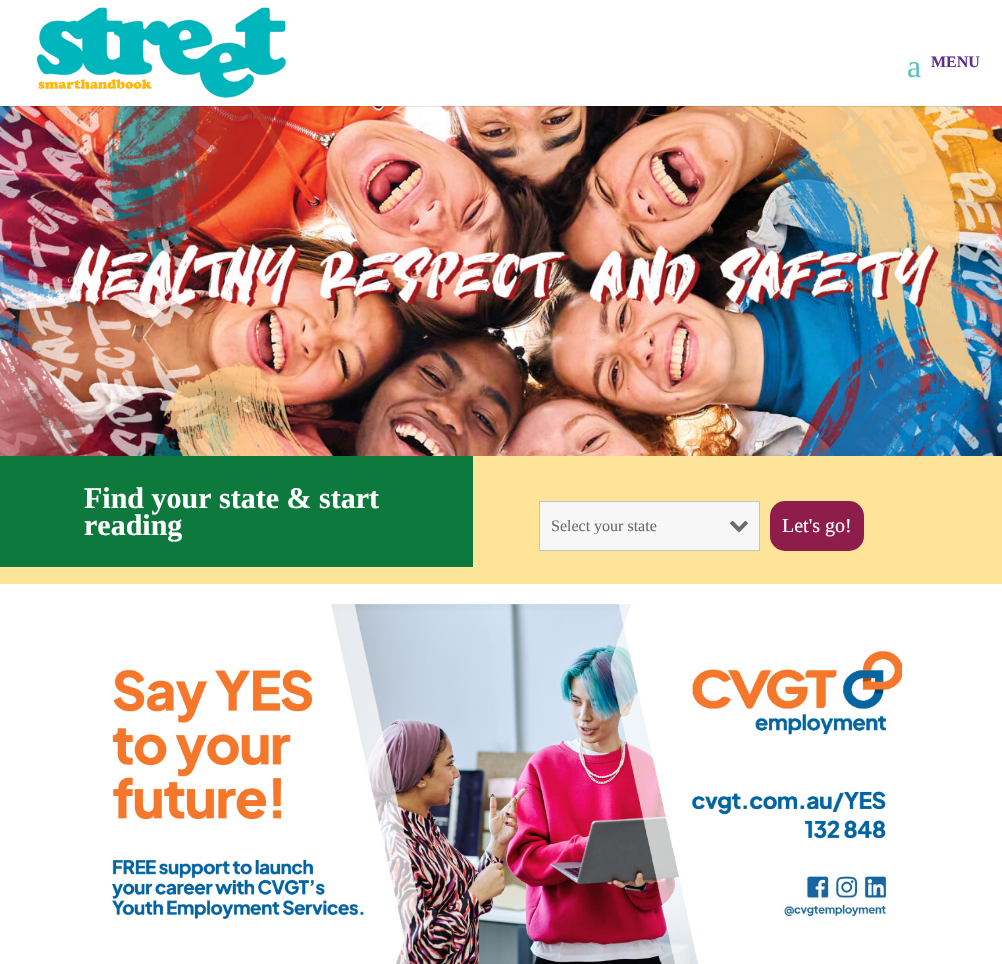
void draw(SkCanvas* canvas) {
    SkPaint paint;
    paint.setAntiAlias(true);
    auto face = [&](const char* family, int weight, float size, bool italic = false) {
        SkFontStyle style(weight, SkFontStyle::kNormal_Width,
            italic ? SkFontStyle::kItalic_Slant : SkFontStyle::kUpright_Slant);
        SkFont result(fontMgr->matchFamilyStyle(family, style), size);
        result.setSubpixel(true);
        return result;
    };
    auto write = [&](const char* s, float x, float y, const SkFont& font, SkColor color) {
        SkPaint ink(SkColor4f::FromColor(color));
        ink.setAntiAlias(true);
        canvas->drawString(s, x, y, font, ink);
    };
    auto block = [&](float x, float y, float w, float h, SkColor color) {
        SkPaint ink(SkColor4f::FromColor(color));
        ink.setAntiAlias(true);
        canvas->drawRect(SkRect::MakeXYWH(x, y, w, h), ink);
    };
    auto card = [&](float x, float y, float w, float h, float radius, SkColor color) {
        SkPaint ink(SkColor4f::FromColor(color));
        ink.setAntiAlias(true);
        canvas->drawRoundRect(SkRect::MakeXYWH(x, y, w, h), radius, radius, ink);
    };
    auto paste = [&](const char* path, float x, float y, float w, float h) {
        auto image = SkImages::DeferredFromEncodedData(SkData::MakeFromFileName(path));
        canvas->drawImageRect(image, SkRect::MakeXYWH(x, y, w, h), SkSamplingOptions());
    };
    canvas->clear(SK_ColorWHITE);
    paste("pic2.png", 0, 106, 1002, 350);
    block(0, 106, 1002, 1, SkColorSetARGB(26, 0, 0, 0));
    paste("pic1.png", 36, 7, 250, 91);
    auto kFont1 = face("Liberation Serif", 400, 32);
    write("a", 907, 77, kFont1, SkColorSetRGB(90, 196, 191));
    auto kFont2 = face("Liberation Serif", 700, 16);
    write("MENU", 931, 67, kFont2, SkColorSetRGB(92, 48, 142));
    block(0, 456, 1002, 128, SkColorSetRGB(254, 228, 153));
    block(0, 456, 473, 111, SkColorSetRGB(13, 121, 61));
    auto kFont3 = face("Liberation Serif", 700, 30);
    write("Find your state & start", 84, 508, kFont3, SK_ColorWHITE);
    write("reading", 84, 535, kFont3, SK_ColorWHITE);
    paint.setColor(SkColorSetRGB(247, 247, 247));
    canvas->drawRect(SkRect::MakeXYWH(539.5f, 501.5f, 220, 49), paint);
    paint.setStyle(SkPaint::kStroke_Style);
    paint.setStrokeWidth(1);
    paint.setColor(SkColorSetRGB(196, 196, 196));
    canvas->drawRect(SkRect::MakeXYWH(539.5f, 501.5f, 220, 49), paint);
    paste("pic3.png", 730, 520, 18, 13);
    canvas->save();
    canvas->clipRect(SkRect::MakeXYWH(551, 517, 197, 17));
    auto kFont4 = face("Liberation Serif", 400, 16);
    write("Select your state", 551, 531, kFont4, SkColorSetRGB(107, 107, 107));
    canvas->restore();
    card(770, 501, 94, 50, 15, SkColorSetRGB(143, 29, 76));
    auto kFont5 = face("Liberation Serif", 400, 20);
    write("Let's go!", 782, 532, kFont5, SK_ColorWHITE);
    paste("pic4.png", 100, 604, 802, 360);
}
